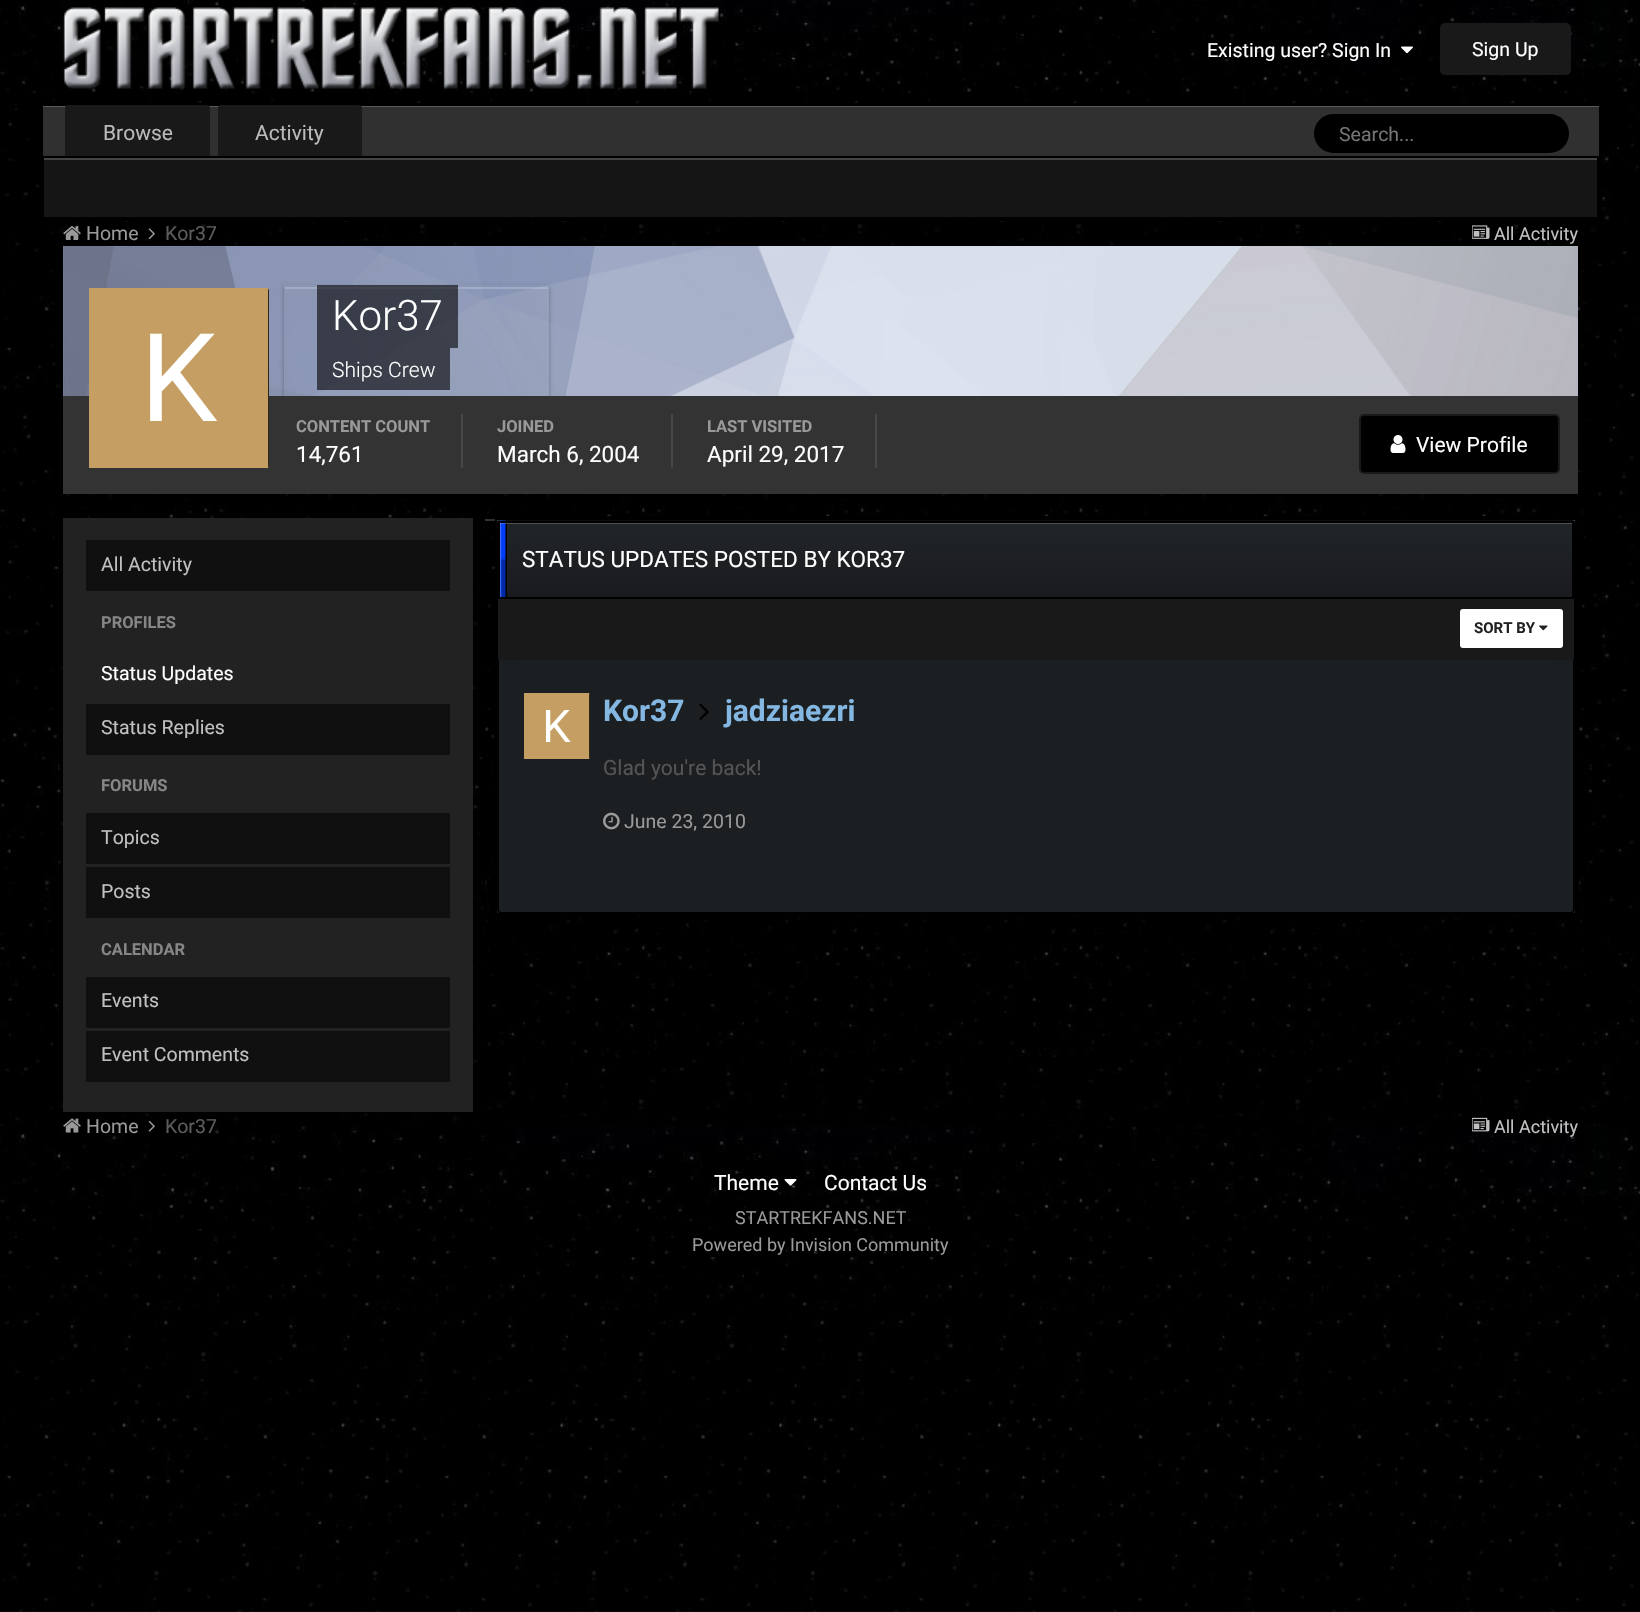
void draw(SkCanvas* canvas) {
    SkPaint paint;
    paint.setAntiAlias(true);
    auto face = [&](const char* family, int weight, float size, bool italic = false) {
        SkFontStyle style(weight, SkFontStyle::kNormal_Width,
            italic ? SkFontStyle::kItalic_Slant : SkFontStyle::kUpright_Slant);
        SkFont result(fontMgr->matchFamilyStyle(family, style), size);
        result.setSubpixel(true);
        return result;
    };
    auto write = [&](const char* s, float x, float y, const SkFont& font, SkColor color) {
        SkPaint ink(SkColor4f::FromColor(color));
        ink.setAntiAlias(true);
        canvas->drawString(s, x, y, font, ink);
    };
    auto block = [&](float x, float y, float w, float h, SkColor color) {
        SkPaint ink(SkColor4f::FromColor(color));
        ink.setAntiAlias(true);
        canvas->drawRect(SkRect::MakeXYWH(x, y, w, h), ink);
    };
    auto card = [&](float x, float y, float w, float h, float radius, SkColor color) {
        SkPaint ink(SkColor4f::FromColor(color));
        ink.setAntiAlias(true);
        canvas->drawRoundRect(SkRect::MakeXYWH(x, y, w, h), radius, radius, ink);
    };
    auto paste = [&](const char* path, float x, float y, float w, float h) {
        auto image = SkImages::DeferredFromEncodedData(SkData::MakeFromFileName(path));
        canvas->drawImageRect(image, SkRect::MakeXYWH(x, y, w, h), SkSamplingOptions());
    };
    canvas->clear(SK_ColorWHITE);
    paste("pic1.png", 0, 0, 1640, 1612);
    block(513, 218, 1095, 1, SkColorSetARGB(26, 0, 0, 0));
    paste("pic2.png", 63, 7, 656, 82);
    auto kFont1 = face("Roboto", 400, 19.5f);
    write("Existing user? Sign In", 1207, 57, kFont1, SK_ColorWHITE);
    paste("pic3.png", 1401, 46, 12, 8);
    card(1440, 23, 131, 52, 5, SkColorSetRGB(25, 25, 25));
    write("Sign Up", 1472, 56, kFont1, SK_ColorWHITE);
    block(63, 221, 1515, 918, SkColorSetARGB(51, 0, 0, 0));
    paste("pic4.png", 63, 226, 18, 14);
    paste("pic5.png", 148, 228, 7, 12);
    paste("pic6.png", 1472, 225, 18, 14);
    paint.setColor(SkColorSetARGB(77, 0, 0, 0));
    paint.setMaskFilter(SkMaskFilter::MakeBlur(kNormal_SkBlurStyle, 2));
    canvas->drawRect(SkRect::MakeXYWH(41, 105, 1560, 117), paint);
    paint.setMaskFilter(nullptr);
    block(43, 107, 1556, 49, SkColorSetRGB(48, 48, 48));
    block(42, 106, 1557, 1, SkColorSetRGB(89, 89, 89));
    paint.setStyle(SkPaint::kStroke_Style);
    paint.setStrokeWidth(2);
    paint.setColor(SK_ColorBLACK);
    canvas->drawRect(SkRect::MakeXYWH(42, 105, 1558, 115), paint);
    paint.setStyle(SkPaint::kFill_Style);
    paint.setColor(SkColorSetRGB(25, 25, 25));
    canvas->drawPath(SkPathBuilder().moveTo(68, 105).lineTo(207, 105).cubicTo(208.5f, 105, 210, 106.5f, 210, 108).lineTo(210, 159).lineTo(65, 159).lineTo(65, 108).cubicTo(65, 106.5f, 66.5f, 105, 68, 105).close().detach(), paint);
    auto kFont2 = face("Roboto", 400, 21);
    write("Browse", 103, 140, kFont2, SkColorSetRGB(186, 186, 186));
    canvas->drawPath(SkPathBuilder().moveTo(221, 105).lineTo(359, 105).cubicTo(360.5f, 105, 362, 106.5f, 362, 108).lineTo(362, 159).lineTo(218, 159).lineTo(218, 108).cubicTo(218, 106.5f, 219.5f, 105, 221, 105).close().detach(), paint);
    write("Activity", 255, 140, kFont2, SkColorSetRGB(186, 186, 186));
    card(1314, 114, 255, 39, 19.5f, SK_ColorBLACK);
    paint.setColor(SkColorSetARGB(77, 0, 0, 0));
    paint.setMaskFilter(SkMaskFilter::MakeBlur(kNormal_SkBlurStyle, 2));
    canvas->drawRect(SkRect::MakeXYWH(42, 158, 1557, 63), paint);
    paint.setMaskFilter(nullptr);
    block(44, 160, 1553, 57, SkColorSetRGB(21, 21, 21));
    block(44, 158, 1554, 2, SkColorSetRGB(68, 68, 68));
    paint.setStyle(SkPaint::kStroke_Style);
    paint.setColor(SK_ColorBLACK);
    canvas->drawRect(SkRect::MakeXYWH(43, 157, 1555, 61), paint);
    write("Search...", 1339, 141, kFont1, SkColorSetRGB(117, 117, 117));
    write("Home", 86, 240, kFont1, SkColorSetRGB(153, 153, 153));
    write("Kor37", 165, 240, kFont1, SkColorSetRGB(92, 92, 92));
    auto kFont3 = face("Roboto", 400, 18);
    write("All Activity", 1494, 240, kFont3, SkColorSetRGB(192, 192, 192));
    block(63, 246, 1515, 150, SkColorSetRGB(153, 177, 255));
    paste("pic7.png", 63, 246, 1515, 150);
    canvas->save();
    canvas->clipPath(SkPathBuilder(SkPathFillType::kEvenOdd).moveTo(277, 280).lineTo(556, 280).lineTo(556, 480).lineTo(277, 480).close().moveTo(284, 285).lineTo(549, 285).lineTo(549, 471).lineTo(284, 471).close().detach(), true);
    paint.setStyle(SkPaint::kFill_Style);
    paint.setColor(SkColorSetARGB(77, 0, 0, 0));
    paint.setMaskFilter(SkMaskFilter::MakeBlur(kNormal_SkBlurStyle, 2));
    canvas->drawRect(SkRect::MakeXYWH(284, 287, 265, 186), paint);
    paint.setMaskFilter(nullptr);
    canvas->restore();
    block(63, 396, 1515, 98, SkColorSetRGB(51, 51, 51));
    card(89, 288, 180, 180, 3, SK_ColorBLACK);
    paste("pic8.png", 89, 288, 180, 180);
    block(285, 287, 263, 2, SkColorSetARGB(51, 255, 255, 255));
    block(317, 285, 141, 63, SkColorSetARGB(153, 0, 0, 0));
    auto kFont4 = face("Roboto", 300, 42);
    write("Kor37", 332, 330, kFont4, SK_ColorWHITE);
    block(317, 348, 133, 42, SkColorSetARGB(153, 0, 0, 0));
    auto kFont5 = face("Roboto", 300, 21);
    write("Ships Crew", 332, 377, kFont5, SK_ColorWHITE);
    block(461, 414, 2, 54, SkColorSetRGB(71, 71, 71));
    auto kFont6 = face("Roboto", 700, 16.5f);
    write("CONTENT COUNT", 296, 432, kFont6, SkColorSetRGB(153, 153, 153));
    auto kFont7 = face("Roboto", 400, 22.5f);
    write("14,761", 296, 462, kFont7, SK_ColorWHITE);
    block(671, 414, 2, 54, SkColorSetRGB(71, 71, 71));
    write("JOINED", 497, 432, kFont6, SkColorSetRGB(153, 153, 153));
    write("March 6, 2004", 497, 462, kFont7, SK_ColorWHITE);
    block(875, 414, 2, 54, SkColorSetRGB(71, 71, 71));
    write("LAST VISITED", 707, 432, kFont6, SkColorSetRGB(153, 153, 153));
    write("April 29, 2017", 707, 462, kFont7, SK_ColorWHITE);
    paint.setColor(SK_ColorBLACK);
    canvas->drawRoundRect(SkRect::MakeXYWH(1360, 415, 199, 58), 4, 4, paint);
    paint.setStyle(SkPaint::kStroke_Style);
    paint.setColor(SkColorSetRGB(25, 25, 25));
    canvas->drawRoundRect(SkRect::MakeXYWH(1360, 415, 199, 58), 4, 4, paint);
    paste("pic9.png", 1390, 435, 16, 18);
    write("View Profile", 1416, 452, kFont2, SK_ColorWHITE);
    block(63, 518, 410, 594, SkColorSetRGB(34, 34, 34));
    block(86, 540, 364, 51, SkColorSetRGB(16, 16, 16));
    write("All Activity", 101, 571, kFont1, SkColorSetRGB(192, 192, 192));
    write("PROFILES", 101, 628, kFont6, SkColorSetRGB(134, 134, 134));
    write("Status Updates", 101, 680, kFont1, SK_ColorWHITE);
    block(86, 704, 364, 51, SkColorSetRGB(16, 16, 16));
    write("Status Replies", 101, 734, kFont1, SkColorSetRGB(192, 192, 192));
    write("FORUMS", 101, 791, kFont6, SkColorSetRGB(134, 134, 134));
    block(86, 813, 364, 51, SkColorSetRGB(16, 16, 16));
    write("Topics", 101, 844, kFont1, SkColorSetRGB(192, 192, 192));
    block(86, 867, 364, 51, SkColorSetRGB(16, 16, 16));
    write("Posts", 101, 898, kFont1, SkColorSetRGB(192, 192, 192));
    write("CALENDAR", 101, 955, kFont6, SkColorSetRGB(134, 134, 134));
    block(86, 977, 364, 51, SkColorSetRGB(16, 16, 16));
    write("Events", 101, 1007, kFont1, SkColorSetRGB(192, 192, 192));
    block(86, 1031, 364, 51, SkColorSetRGB(16, 16, 16));
    write("Event Comments", 101, 1061, kFont1, SkColorSetRGB(192, 192, 192));
    block(525, 516, 1033, 2, SK_ColorBLACK);
    block(1577, 725, 2, 208, SK_ColorBLACK);
    block(601, 1110, 878, 2, SK_ColorBLACK);
    block(483, 725, 2, 185, SK_ColorBLACK);
    block(485, 519, 10, 2, SkColorSetARGB(51, 255, 255, 255));
    paint.setStyle(SkPaint::kFill_Style);
    paint.setColor(SkColorSetARGB(77, 0, 0, 0));
    paint.setMaskFilter(SkMaskFilter::MakeBlur(kNormal_SkBlurStyle, 2));
    canvas->drawRect(SkRect::MakeXYWH(495, 519, 1082, 398), paint);
    paint.setMaskFilter(nullptr);
    block(497, 521, 1078, 392, SkColorSetRGB(27, 31, 33));
    block(497, 520, 1078, 1, SkColorSetRGB(73, 76, 77));
    paint.setStyle(SkPaint::kStroke_Style);
    paint.setColor(SK_ColorBLACK);
    canvas->drawRect(SkRect::MakeXYWH(496, 519, 1080, 395), paint);
    paint.setStyle(SkPaint::kFill_Style);
    paint.setColor(SkColorSetRGB(27, 31, 33));
    canvas->drawRoundRect(SkRect::MakeXYWH(498, 520, 1076, 393), 4, 4, paint);
    paint.setStyle(SkPaint::kStroke_Style);
    paint.setColor(SK_ColorBLACK);
    canvas->drawRoundRect(SkRect::MakeXYWH(498, 520, 1076, 393), 4, 4, paint);
    paste("pic10.png", 498, 520, 1076, 77);
    block(500, 523, 1072, 1, SkColorSetARGB(51, 255, 255, 255));
    canvas->drawRect(SkRect::MakeXYWH(499, 522, 1074, 76), paint);
    write("STATUS UPDATES POSTED BY KOR37", 522, 567, kFont7, SK_ColorWHITE);
    block(498, 599, 1076, 61, SkColorSetRGB(25, 25, 25));
    block(498, 660, 1076, 1, SkColorSetARGB(26, 0, 0, 0));
    card(1460, 609, 103, 39, 3, SK_ColorWHITE);
    auto kFont8 = face("Roboto", 700, 15);
    write("SORT BY", 1474, 633, kFont8, SkColorSetRGB(34, 34, 34));
    paste("pic11.png", 1539, 625, 9, 6);
    card(521, 660, 1030, 230, 5, SkColorSetRGB(27, 31, 33));
    card(524, 693, 66, 66, 3, SK_ColorBLACK);
    paste("pic12.png", 524, 693, 66, 66);
    auto kFont9 = face("Roboto", 700, 30);
    write("Kor37", 603, 721, kFont9, SkColorSetRGB(132, 183, 226));
    paste("pic13.png", 699, 703, 10, 17);
    write("jadziaezri", 725, 721, kFont9, SkColorSetRGB(132, 183, 226));
    write("Glad you're back!", 603, 775, kFont2, SkColorSetRGB(85, 85, 85));
    paste("pic14.png", 603, 812, 17, 18);
    write("June 23, 2010", 624, 828, kFont1, SkColorSetRGB(153, 153, 153));
    paste("pic15.png", 63, 1118, 18, 15);
    write("Home", 86, 1133, kFont1, SkColorSetRGB(153, 153, 153));
    paste("pic16.png", 148, 1120, 7, 12);
    write("Kor37", 165, 1133, kFont1, SkColorSetRGB(92, 92, 92));
    paste("pic17.png", 1472, 1117, 18, 15);
    write("All Activity", 1494, 1133, kFont3, SkColorSetRGB(192, 192, 192));
    write("Theme", 714, 1190, kFont2, SK_ColorWHITE);
    paste("pic18.png", 784, 1179, 13, 7);
    write("Contact Us", 824, 1190, kFont2, SK_ColorWHITE);
    write("STARTREKFANS.NET", 735, 1224, kFont3, SkColorSetRGB(153, 153, 153));
    write("Powered by Invision Community", 692, 1251, kFont3, SkColorSetRGB(153, 153, 153));
}
